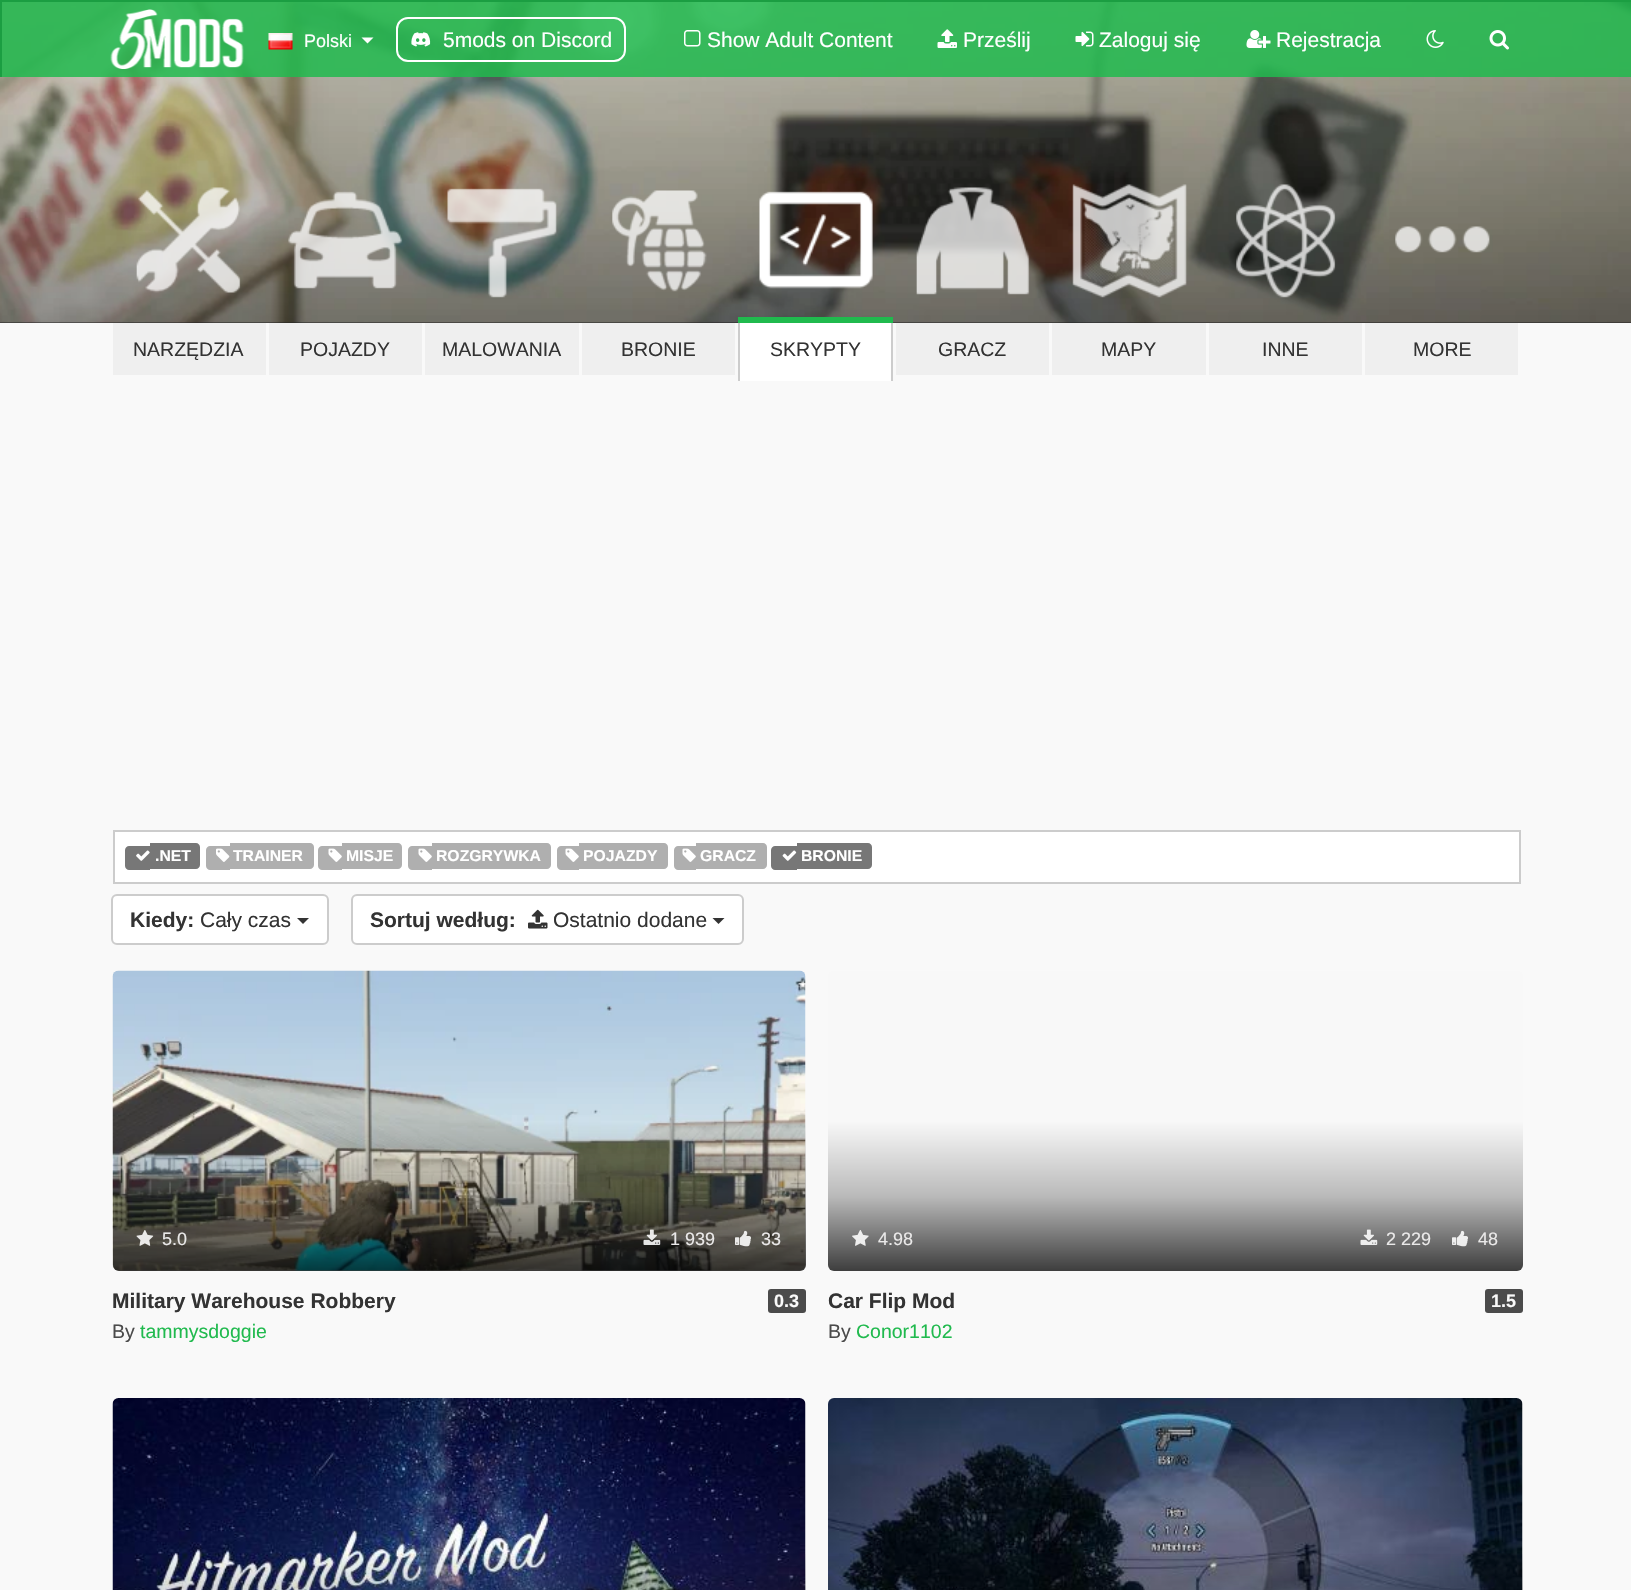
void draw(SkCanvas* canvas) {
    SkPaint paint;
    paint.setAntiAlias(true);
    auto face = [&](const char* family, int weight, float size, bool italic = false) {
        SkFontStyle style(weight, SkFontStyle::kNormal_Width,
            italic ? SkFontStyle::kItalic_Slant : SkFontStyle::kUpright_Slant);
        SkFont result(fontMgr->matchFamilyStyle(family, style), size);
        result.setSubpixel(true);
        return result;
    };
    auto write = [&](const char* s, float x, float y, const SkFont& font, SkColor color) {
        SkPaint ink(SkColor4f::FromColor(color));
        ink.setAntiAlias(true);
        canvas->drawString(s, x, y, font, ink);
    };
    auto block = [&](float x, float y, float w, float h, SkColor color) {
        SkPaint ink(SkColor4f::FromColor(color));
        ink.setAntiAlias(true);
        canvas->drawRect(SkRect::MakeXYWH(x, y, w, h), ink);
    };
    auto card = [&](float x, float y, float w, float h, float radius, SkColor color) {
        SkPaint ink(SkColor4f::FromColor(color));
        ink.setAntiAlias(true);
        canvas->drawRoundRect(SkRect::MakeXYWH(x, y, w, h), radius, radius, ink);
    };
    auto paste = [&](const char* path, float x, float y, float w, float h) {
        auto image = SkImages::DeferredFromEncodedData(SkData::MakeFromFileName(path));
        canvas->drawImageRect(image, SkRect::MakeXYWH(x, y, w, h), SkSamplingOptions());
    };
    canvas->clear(SkColorSetRGB(249, 249, 249));
    block(0, 322, 1631, 1, SkColorSetRGB(34, 34, 34));
    paste("pic10.png", 0, 2, 1631, 321);
    block(2, 2, 1629, 75, SkColorSetARGB(217, 32, 186, 78));
    block(0, 0, 1631, 2, SkColorSetRGB(27, 158, 66));
    block(0, 0, 2, 77, SkColorSetRGB(27, 158, 66));
    paste("pic1.png", 110, 9, 134, 60);
    paste("pic2.png", 268, 33, 25, 17);
    auto kFont1 = face("Liberation Sans", 400, 18);
    write("Polski", 304, 47, kFont1, SK_ColorWHITE);
    paint.setColor(SK_ColorWHITE);
    canvas->drawPath(SkPathBuilder().moveTo(361.5f, 37.5f).lineTo(373.5f, 37.5f).lineTo(367.5f, 43.5f).close().detach(), paint);
    paint.setStyle(SkPaint::kStroke_Style);
    paint.setStrokeWidth(2);
    canvas->drawRoundRect(SkRect::MakeXYWH(397, 18, 228, 43), 11, 11, paint);
    paste("pic3.png", 411, 32, 20, 15);
    auto kFont2 = face("Liberation Sans", 400, 21);
    write("5mods on Discord", 443, 47, kFont2, SK_ColorWHITE);
    paste("pic4.png", 684, 30, 17, 17);
    write("Show Adult Content", 707, 47, kFont2, SK_ColorWHITE);
    paste("pic5.png", 937, 29, 20, 19);
    write("Prześlij", 963, 47, kFont2, SK_ColorWHITE);
    paste("pic6.png", 1075, 31, 19, 16);
    write("Zaloguj się", 1099, 47, kFont2, SK_ColorWHITE);
    paste("pic7.png", 1246, 30, 25, 18);
    write("Rejestracja", 1276, 47, kFont2, SK_ColorWHITE);
    paste("pic8.png", 1426, 30, 18, 18);
    paste("pic9.png", 1489, 30, 20, 20);
    paste("pic11.png", 136, 187, 105, 106);
    block(113, 323, 153, 52, SkColorSetRGB(239, 239, 239));
    auto kFont3 = face("Liberation Sans", 400, 19.5f);
    write("NARZĘDZIA", 133, 356, kFont3, SkColorSetRGB(51, 51, 51));
    paste("pic12.png", 288, 191, 115, 98);
    block(269, 323, 153, 52, SkColorSetRGB(239, 239, 239));
    write("POJAZDY", 300, 356, kFont3, SkColorSetRGB(51, 51, 51));
    paste("pic13.png", 447, 188, 110, 110);
    block(425, 323, 154, 52, SkColorSetRGB(239, 239, 239));
    write("MALOWANIA", 442, 356, kFont3, SkColorSetRGB(51, 51, 51));
    paste("pic14.png", 612, 190, 95, 102);
    block(582, 323, 153, 52, SkColorSetRGB(239, 239, 239));
    write("BRONIE", 621, 356, kFont3, SkColorSetRGB(51, 51, 51));
    paste("pic15.png", 759, 191, 114, 98);
    block(738, 317, 155, 6, SkColorSetRGB(32, 186, 78));
    block(891, 323, 2, 58, SkColorSetRGB(204, 204, 204));
    block(738, 323, 2, 58, SkColorSetRGB(204, 204, 204));
    block(740, 323, 151, 58, SK_ColorWHITE);
    write("SKRYPTY", 770, 356, kFont3, SkColorSetRGB(51, 51, 51));
    paste("pic16.png", 916, 187, 114, 108);
    block(896, 323, 153, 52, SkColorSetRGB(239, 239, 239));
    write("GRACZ", 938, 356, kFont3, SkColorSetRGB(51, 51, 51));
    paste("pic17.png", 1072, 184, 115, 114);
    block(1052, 323, 154, 52, SkColorSetRGB(239, 239, 239));
    write("MAPY", 1101, 356, kFont3, SkColorSetRGB(51, 51, 51));
    paste("pic18.png", 1236, 184, 100, 114);
    block(1209, 323, 153, 52, SkColorSetRGB(239, 239, 239));
    write("INNE", 1262, 356, kFont3, SkColorSetRGB(51, 51, 51));
    paste("pic19.png", 1395, 226, 95, 27);
    block(1365, 323, 153, 52, SkColorSetRGB(239, 239, 239));
    write("MORE", 1413, 356, kFont3, SkColorSetRGB(51, 51, 51));
    paint.setStyle(SkPaint::kFill_Style);
    canvas->drawRect(SkRect::MakeXYWH(114, 831, 1406, 52), paint);
    paint.setStyle(SkPaint::kStroke_Style);
    paint.setColor(SkColorSetRGB(204, 204, 204));
    canvas->drawRect(SkRect::MakeXYWH(114, 831, 1406, 52), paint);
    paint.setStyle(SkPaint::kFill_Style);
    paint.setColor(SkColorSetRGB(119, 119, 119));
    canvas->drawPath(SkPathBuilder().moveTo(129, 846).lineTo(150, 846).lineTo(150, 870).lineTo(129, 870).cubicTo(127, 870, 125, 868, 125, 866).lineTo(125, 850).cubicTo(125, 848, 127, 846, 129, 846).close().detach(), paint);
    canvas->drawPath(SkPathBuilder().moveTo(150, 843).lineTo(196, 843).cubicTo(198, 843, 200, 845, 200, 847).lineTo(200, 865).cubicTo(200, 867, 198, 869, 196, 869).lineTo(150, 869).close().detach(), paint);
    paste("pic20.png", 136, 850, 14, 11);
    auto kFont4 = face("Liberation Sans", 700, 15.75f);
    write(".NET", 155, 861, kFont4, SK_ColorWHITE);
    paint.setColor(SkColorSetRGB(175, 175, 175));
    canvas->drawPath(SkPathBuilder().moveTo(210, 846).lineTo(230, 846).lineTo(230, 870).lineTo(210, 870).cubicTo(208, 870, 206, 868, 206, 866).lineTo(206, 850).cubicTo(206, 848, 208, 846, 210, 846).close().detach(), paint);
    canvas->drawPath(SkPathBuilder().moveTo(230, 843).lineTo(310, 843).cubicTo(312, 843, 314, 845, 314, 847).lineTo(314, 865).cubicTo(314, 867, 312, 869, 310, 869).lineTo(230, 869).close().detach(), paint);
    paste("pic21.png", 216, 848, 14, 14);
    write("TRAINER", 233, 861, kFont4, SK_ColorWHITE);
    canvas->drawPath(SkPathBuilder().moveTo(322, 846).lineTo(342, 846).lineTo(342, 870).lineTo(322, 870).cubicTo(320, 870, 318, 868, 318, 866).lineTo(318, 850).cubicTo(318, 848, 320, 846, 322, 846).close().detach(), paint);
    canvas->drawPath(SkPathBuilder().moveTo(342, 843).lineTo(398, 843).cubicTo(400, 843, 402, 845, 402, 847).lineTo(402, 865).cubicTo(402, 867, 400, 869, 398, 869).lineTo(342, 869).close().detach(), paint);
    paste("pic22.png", 328, 848, 14, 14);
    write("MISJE", 346, 861, kFont4, SK_ColorWHITE);
    canvas->drawPath(SkPathBuilder().moveTo(412, 846).lineTo(432, 846).lineTo(432, 870).lineTo(412, 870).cubicTo(410, 870, 408, 868, 408, 866).lineTo(408, 850).cubicTo(408, 848, 410, 846, 412, 846).close().detach(), paint);
    canvas->drawPath(SkPathBuilder().moveTo(432, 843).lineTo(547, 843).cubicTo(549, 843, 551, 845, 551, 847).lineTo(551, 865).cubicTo(551, 867, 549, 869, 547, 869).lineTo(432, 869).close().detach(), paint);
    paste("pic22.png", 418, 848, 14, 14);
    write("ROZGRYWKA", 436, 861, kFont4, SK_ColorWHITE);
    canvas->drawPath(SkPathBuilder().moveTo(561, 846).lineTo(579, 846).lineTo(579, 870).lineTo(561, 870).cubicTo(559, 870, 557, 868, 557, 866).lineTo(557, 850).cubicTo(557, 848, 559, 846, 561, 846).close().detach(), paint);
    canvas->drawPath(SkPathBuilder().moveTo(579, 843).lineTo(664, 843).cubicTo(666, 843, 668, 845, 668, 847).lineTo(668, 865).cubicTo(668, 867, 666, 869, 664, 869).lineTo(579, 869).close().detach(), paint);
    paste("pic22.png", 565, 848, 14, 14);
    write("POJAZDY", 583, 861, kFont4, SK_ColorWHITE);
    canvas->drawPath(SkPathBuilder().moveTo(678, 846).lineTo(696, 846).lineTo(696, 870).lineTo(678, 870).cubicTo(676, 870, 674, 868, 674, 866).lineTo(674, 850).cubicTo(674, 848, 676, 846, 678, 846).close().detach(), paint);
    canvas->drawPath(SkPathBuilder().moveTo(696, 843).lineTo(763, 843).cubicTo(765, 843, 767, 845, 767, 847).lineTo(767, 865).cubicTo(767, 867, 765, 869, 763, 869).lineTo(696, 869).close().detach(), paint);
    paste("pic22.png", 682, 848, 14, 14);
    write("GRACZ", 700, 861, kFont4, SK_ColorWHITE);
    paint.setColor(SkColorSetRGB(119, 119, 119));
    canvas->drawPath(SkPathBuilder().moveTo(775, 846).lineTo(797, 846).lineTo(797, 870).lineTo(775, 870).cubicTo(773, 870, 771, 868, 771, 866).lineTo(771, 850).cubicTo(771, 848, 773, 846, 775, 846).close().detach(), paint);
    canvas->drawPath(SkPathBuilder().moveTo(797, 843).lineTo(868, 843).cubicTo(870, 843, 872, 845, 872, 847).lineTo(872, 865).cubicTo(872, 867, 870, 869, 868, 869).lineTo(797, 869).close().detach(), paint);
    paste("pic23.png", 782, 850, 15, 11);
    write("BRONIE", 801, 861, kFont4, SK_ColorWHITE);
    paint.setColor(SK_ColorWHITE);
    canvas->drawRoundRect(SkRect::MakeXYWH(112, 895, 216, 49), 5, 5, paint);
    paint.setStyle(SkPaint::kStroke_Style);
    paint.setColor(SkColorSetRGB(204, 204, 204));
    canvas->drawRoundRect(SkRect::MakeXYWH(112, 895, 216, 49), 5, 5, paint);
    auto kFont5 = face("Liberation Sans", 700, 21);
    write("Kiedy:", 130, 927, kFont5, SkColorSetRGB(51, 51, 51));
    write("Cały czas", 200, 927, kFont2, SkColorSetRGB(51, 51, 51));
    paint.setStyle(SkPaint::kFill_Style);
    paint.setColor(SkColorSetRGB(51, 51, 51));
    canvas->drawPath(SkPathBuilder().moveTo(297, 918).lineTo(309, 918).lineTo(303, 924).close().detach(), paint);
    paint.setColor(SK_ColorWHITE);
    canvas->drawRoundRect(SkRect::MakeXYWH(352, 895, 391, 49), 5, 5, paint);
    paint.setStyle(SkPaint::kStroke_Style);
    paint.setColor(SkColorSetRGB(204, 204, 204));
    canvas->drawRoundRect(SkRect::MakeXYWH(352, 895, 391, 49), 5, 5, paint);
    write("Sortuj według:", 370, 927, kFont5, SkColorSetRGB(51, 51, 51));
    paste("pic24.png", 528, 909, 20, 20);
    write("Ostatnio dodane", 553, 927, kFont2, SkColorSetRGB(51, 51, 51));
    paint.setStyle(SkPaint::kFill_Style);
    paint.setColor(SkColorSetRGB(51, 51, 51));
    canvas->drawPath(SkPathBuilder().moveTo(712.5f, 918).lineTo(724.5f, 918).lineTo(718.5f, 924).close().detach(), paint);
    paste("pic25.png", 112, 970, 694, 301);
    {
        const SkColor colors[] = {SkColorSetARGB(0, 0, 0, 0), SkColorSetARGB(64, 0, 0, 0), SkColorSetARGB(191, 0, 0, 0)};
        const float stops[] = {0.5f, 0.75f, 1};
        const SkPoint ends[] = {{459, 971}, {459, 1271}};
        paint.setShader(SkGradientShader::MakeLinear(ends, colors, stops, 3, SkTileMode::kClamp));
        paint.setAlpha(255);
    }
    canvas->drawRoundRect(SkRect::MakeXYWH(113, 971, 693, 300), 6, 6, paint);
    paste("pic26.png", 136, 1230, 18, 16);
    write("5.0", 162, 1245, kFont1, SkColorSetRGB(234, 233, 233));
    paste("pic27.png", 643, 1229, 18, 16);
    write("1 939", 670, 1245, kFont1, SkColorSetRGB(234, 233, 233));
    paste("pic28.png", 735, 1230, 16, 17);
    write("33", 761, 1245, kFont1, SkColorSetRGB(234, 233, 233));
    write("Military Warehouse Robbery", 112, 1308, kFont5, SkColorSetRGB(51, 51, 51));
    card(768, 1289, 38, 24, 3, SkColorSetRGB(75, 75, 75));
    auto kFont6 = face("Liberation Sans", 700, 18);
    write("0.3", 774, 1307, kFont6, SkColorSetRGB(249, 249, 249));
    write("By", 112, 1338, kFont3, SkColorSetRGB(75, 75, 75));
    write("tammysdoggie", 140, 1338, kFont3, SkColorSetRGB(32, 186, 78));
    {
        const SkColor colors[] = {SkColorSetRGB(248, 248, 248), SkColorSetRGB(186, 186, 186), SkColorSetRGB(62, 62, 62)};
        const float stops[] = {0.5f, 0.75f, 1};
        const SkPoint ends[] = {{1175, 971}, {1175, 1271}};
        paint.setShader(SkGradientShader::MakeLinear(ends, colors, stops, 3, SkTileMode::kClamp));
        paint.setAlpha(255);
    }
    canvas->drawRoundRect(SkRect::MakeXYWH(828, 971, 695, 300), 6, 6, paint);
    paste("pic29.png", 852, 1230, 17, 16);
    write("4.98", 878, 1245, kFont1, SkColorSetRGB(234, 233, 233));
    paste("pic30.png", 1360, 1229, 18, 16);
    write("2 229", 1386, 1245, kFont1, SkColorSetRGB(234, 233, 233));
    paste("pic31.png", 1452, 1230, 16, 17);
    write("48", 1478, 1245, kFont1, SkColorSetRGB(234, 233, 233));
    write("Car Flip Mod", 828, 1308, kFont5, SkColorSetRGB(51, 51, 51));
    card(1485, 1289, 38, 24, 3, SkColorSetRGB(75, 75, 75));
    write("1.5", 1491, 1307, kFont6, SkColorSetRGB(249, 249, 249));
    write("By", 828, 1338, kFont3, SkColorSetRGB(75, 75, 75));
    write("Conor1102", 856, 1338, kFont3, SkColorSetRGB(32, 186, 78));
    paste("pic32.png", 112, 1398, 694, 192);
    {
        const SkColor colors[] = {SkColorSetARGB(0, 0, 0, 0), SkColorSetARGB(64, 0, 0, 0), SkColorSetARGB(191, 0, 0, 0)};
        const float stops[] = {0.5f, 0.75f, 1};
        const SkPoint ends[] = {{459, 1398}, {459, 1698}};
        paint.setShader(SkGradientShader::MakeLinear(ends, colors, stops, 3, SkTileMode::kClamp));
        paint.setAlpha(255);
    }
    canvas->drawRect(SkRect::MakeXYWH(113, 1554, 693, 36), paint);
    paste("pic33.png", 828, 1398, 695, 192);
    {
        const SkColor colors[] = {SkColorSetARGB(0, 0, 0, 0), SkColorSetARGB(64, 0, 0, 0), SkColorSetARGB(191, 0, 0, 0)};
        const float stops[] = {0.5f, 0.75f, 1};
        const SkPoint ends[] = {{1175, 1398}, {1175, 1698}};
        paint.setShader(SkGradientShader::MakeLinear(ends, colors, stops, 3, SkTileMode::kClamp));
        paint.setAlpha(255);
    }
    canvas->drawRect(SkRect::MakeXYWH(828, 1554, 695, 36), paint);
}
